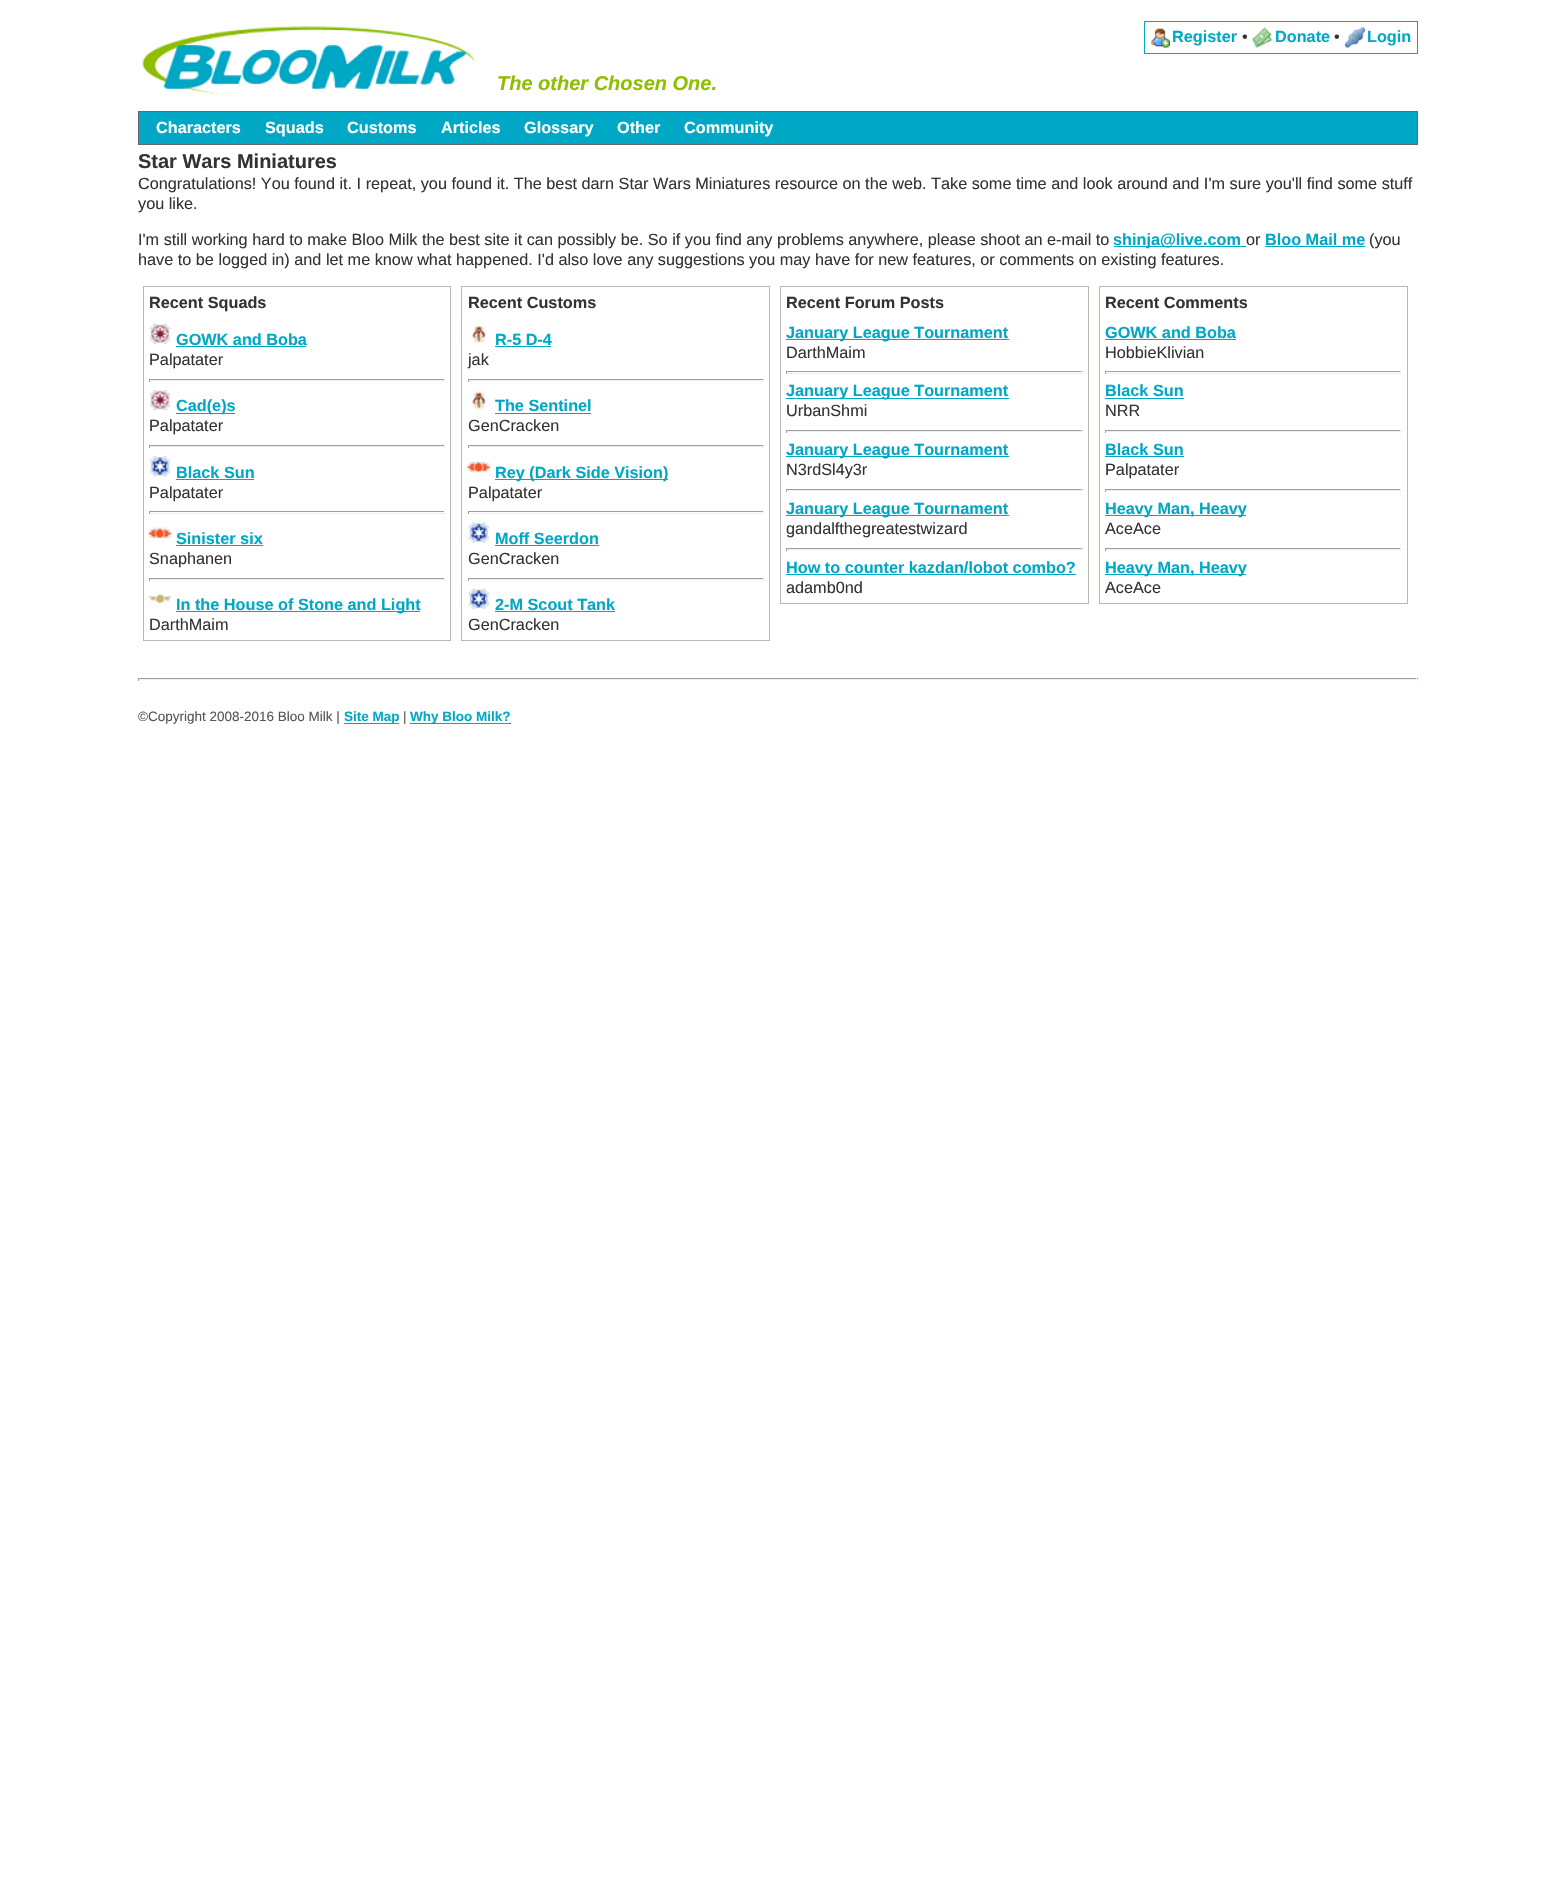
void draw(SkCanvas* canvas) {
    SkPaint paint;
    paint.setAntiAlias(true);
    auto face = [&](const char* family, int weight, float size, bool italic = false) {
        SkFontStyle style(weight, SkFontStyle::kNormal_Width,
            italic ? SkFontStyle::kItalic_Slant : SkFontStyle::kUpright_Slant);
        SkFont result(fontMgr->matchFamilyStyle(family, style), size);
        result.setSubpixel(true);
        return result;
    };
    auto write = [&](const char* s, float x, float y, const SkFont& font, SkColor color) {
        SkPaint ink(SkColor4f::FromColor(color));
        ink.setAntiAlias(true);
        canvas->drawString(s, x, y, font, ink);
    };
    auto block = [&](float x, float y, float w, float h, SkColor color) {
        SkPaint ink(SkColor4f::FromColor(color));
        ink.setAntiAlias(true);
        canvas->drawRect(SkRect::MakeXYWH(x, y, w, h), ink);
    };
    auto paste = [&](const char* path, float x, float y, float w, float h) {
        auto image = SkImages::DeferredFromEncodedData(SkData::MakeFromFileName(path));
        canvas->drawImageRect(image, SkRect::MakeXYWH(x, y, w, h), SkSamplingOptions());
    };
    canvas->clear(SK_ColorWHITE);
    paste("pic1.png", 142, 26, 333, 71);
    paint.setStyle(SkPaint::kStroke_Style);
    paint.setStrokeWidth(1);
    paint.setColor(SkColorSetRGB(0, 168, 198));
    canvas->drawRect(SkRect::MakeXYWH(1144.5f, 21.5f, 273, 32), paint);
    paste("pic2.png", 1151, 28, 19, 20);
    auto kFont1 = face("Liberation Sans", 700, 16.25f);
    write("Register", 1172, 42, kFont1, SkColorSetRGB(0, 168, 198));
    auto kFont2 = face("Liberation Sans", 400, 16.25f);
    write("•", 1242, 42, kFont2, SkColorSetRGB(51, 51, 51));
    paste("pic3.png", 1252, 27, 21, 21);
    write("Donate", 1275, 42, kFont1, SkColorSetRGB(0, 168, 198));
    write("•", 1334, 42, kFont2, SkColorSetRGB(51, 51, 51));
    paste("pic4.png", 1345, 27, 20, 21);
    write("Login", 1367, 42, kFont1, SkColorSetRGB(0, 168, 198));
    auto kFont3 = face("Liberation Sans", 700, 20, true);
    write("The other Chosen One.", 497, 90, kFont3, SkColorSetRGB(143, 190, 0));
    paint.setStyle(SkPaint::kFill_Style);
    canvas->drawRect(SkRect::MakeXYWH(138.5f, 111.5f, 1279, 33), paint);
    paint.setStyle(SkPaint::kStroke_Style);
    paint.setColor(SkColorSetRGB(102, 102, 102));
    canvas->drawRect(SkRect::MakeXYWH(138.5f, 111.5f, 1279, 33), paint);
    write("Characters", 156, 133, kFont1, SK_ColorWHITE);
    write("Squads", 265, 133, kFont1, SK_ColorWHITE);
    write("Customs", 347, 133, kFont1, SK_ColorWHITE);
    write("Articles", 441, 133, kFont1, SK_ColorWHITE);
    write("Glossary", 524, 133, kFont1, SK_ColorWHITE);
    write("Other", 617, 133, kFont1, SK_ColorWHITE);
    write("Community", 684, 133, kFont1, SK_ColorWHITE);
    auto kFont4 = face("Liberation Sans", 700, 20);
    write("Star Wars Miniatures", 138, 168, kFont4, SkColorSetRGB(51, 51, 51));
    write("Congratulations! You found it. I repeat, you found it. The best darn Star Wars Miniatures resource on the web. Take some time and look around and I'm sure you'll find some stuff", 138, 189, kFont2, SkColorSetRGB(51, 51, 51));
    write("you like.", 138, 209, kFont2, SkColorSetRGB(51, 51, 51));
    write("I'm still working hard to make Bloo Milk the best site it can possibly be. So if you find any problems anywhere, please shoot an e-mail to", 138, 245, kFont2, SkColorSetRGB(51, 51, 51));
    block(1114, 246, 132, 1, SkColorSetRGB(0, 168, 198));
    write("shinja@live.com", 1113, 245, kFont1, SkColorSetRGB(0, 168, 198));
    write("or", 1246, 245, kFont2, SkColorSetRGB(51, 51, 51));
    write("Bloo Mail me", 1265, 245, kFont1, SkColorSetRGB(0, 168, 198));
    block(1265, 246, 100, 1, SkColorSetRGB(0, 168, 198));
    write("(you", 1369, 245, kFont2, SkColorSetRGB(51, 51, 51));
    write("have to be logged in) and let me know what happened. I'd also love any suggestions you may have for new features, or comments on existing features.", 138, 265, kFont2, SkColorSetRGB(51, 51, 51));
    paint.setColor(SkColorSetRGB(188, 183, 173));
    canvas->drawRect(SkRect::MakeXYWH(143.5f, 286.5f, 307, 354), paint);
    write("Recent Squads", 149, 308, kFont1, SkColorSetRGB(51, 51, 51));
    paste("pic5.png", 149, 323, 22, 21);
    write("GOWK and Boba", 176, 345, kFont1, SkColorSetRGB(0, 168, 198));
    block(176, 346, 130, 1, SkColorSetRGB(0, 168, 198));
    write("Palpatater", 149, 365, kFont2, SkColorSetRGB(51, 51, 51));
    block(149, 379, 296, 1, SkColorSetRGB(159, 159, 159));
    block(444, 379, 1, 3, SkColorSetRGB(238, 238, 238));
    block(149, 380, 296, 1, SkColorSetRGB(238, 238, 238));
    block(149, 379, 1, 3, SkColorSetRGB(159, 159, 159));
    paste("pic6.png", 150, 390, 21, 21);
    block(176, 413, 59, 1, SkColorSetRGB(0, 168, 198));
    write("Cad(e)s", 176, 411, kFont1, SkColorSetRGB(0, 168, 198));
    write("Palpatater", 149, 431, kFont2, SkColorSetRGB(51, 51, 51));
    block(149, 445, 296, 1, SkColorSetRGB(159, 159, 159));
    block(444, 445, 1, 3, SkColorSetRGB(238, 238, 238));
    block(149, 446, 296, 1, SkColorSetRGB(238, 238, 238));
    block(149, 445, 1, 3, SkColorSetRGB(159, 159, 159));
    paste("pic7.png", 150, 456, 21, 21);
    write("Black Sun", 176, 478, kFont1, SkColorSetRGB(0, 168, 198));
    block(176, 479, 78, 1, SkColorSetRGB(0, 168, 198));
    write("Palpatater", 149, 498, kFont2, SkColorSetRGB(51, 51, 51));
    block(149, 511, 296, 1, SkColorSetRGB(159, 159, 159));
    block(444, 511, 1, 3, SkColorSetRGB(238, 238, 238));
    block(149, 513, 296, 1, SkColorSetRGB(238, 238, 238));
    block(149, 511, 1, 3, SkColorSetRGB(159, 159, 159));
    paste("pic8.png", 148, 527, 24, 12);
    write("Sinister six", 176, 544, kFont1, SkColorSetRGB(0, 168, 198));
    block(176, 545, 87, 1, SkColorSetRGB(0, 168, 198));
    write("Snaphanen", 149, 564, kFont2, SkColorSetRGB(51, 51, 51));
    block(149, 578, 296, 1, SkColorSetRGB(159, 159, 159));
    block(444, 578, 1, 3, SkColorSetRGB(238, 238, 238));
    block(149, 579, 296, 1, SkColorSetRGB(238, 238, 238));
    block(149, 578, 1, 3, SkColorSetRGB(159, 159, 159));
    paste("pic9.png", 148, 593, 24, 11);
    block(176, 611, 244, 1, SkColorSetRGB(0, 168, 198));
    write("In the House of Stone and Light", 176, 610, kFont1, SkColorSetRGB(0, 168, 198));
    write("DarthMaim", 149, 630, kFont2, SkColorSetRGB(51, 51, 51));
    canvas->drawRect(SkRect::MakeXYWH(461.5f, 286.5f, 308, 354), paint);
    write("Recent Customs", 468, 308, kFont1, SkColorSetRGB(51, 51, 51));
    paste("pic10.png", 471, 324, 15, 20);
    write("R-5 D-4", 495, 345, kFont1, SkColorSetRGB(0, 168, 198));
    block(495, 346, 56, 1, SkColorSetRGB(0, 168, 198));
    write("jak", 468, 365, kFont2, SkColorSetRGB(51, 51, 51));
    block(468, 379, 296, 1, SkColorSetRGB(159, 159, 159));
    block(763, 379, 1, 3, SkColorSetRGB(238, 238, 238));
    block(468, 380, 296, 1, SkColorSetRGB(238, 238, 238));
    block(468, 379, 1, 3, SkColorSetRGB(159, 159, 159));
    paste("pic11.png", 471, 390, 15, 20);
    write("The Sentinel", 495, 411, kFont1, SkColorSetRGB(0, 168, 198));
    block(495, 413, 96, 1, SkColorSetRGB(0, 168, 198));
    write("GenCracken", 468, 431, kFont2, SkColorSetRGB(51, 51, 51));
    block(468, 445, 296, 1, SkColorSetRGB(159, 159, 159));
    block(763, 445, 1, 3, SkColorSetRGB(238, 238, 238));
    block(468, 446, 296, 1, SkColorSetRGB(238, 238, 238));
    block(468, 445, 1, 3, SkColorSetRGB(159, 159, 159));
    paste("pic12.png", 467, 461, 23, 12);
    block(495, 479, 173, 1, SkColorSetRGB(0, 168, 198));
    write("Rey (Dark Side Vision)", 495, 478, kFont1, SkColorSetRGB(0, 168, 198));
    write("Palpatater", 468, 498, kFont2, SkColorSetRGB(51, 51, 51));
    block(468, 511, 296, 1, SkColorSetRGB(159, 159, 159));
    block(763, 511, 1, 3, SkColorSetRGB(238, 238, 238));
    block(468, 513, 296, 1, SkColorSetRGB(238, 238, 238));
    block(468, 511, 1, 3, SkColorSetRGB(159, 159, 159));
    paste("pic13.png", 468, 522, 21, 21);
    write("Moff Seerdon", 495, 544, kFont1, SkColorSetRGB(0, 168, 198));
    block(495, 545, 104, 1, SkColorSetRGB(0, 168, 198));
    write("GenCracken", 468, 564, kFont2, SkColorSetRGB(51, 51, 51));
    block(468, 578, 296, 1, SkColorSetRGB(159, 159, 159));
    block(763, 578, 1, 3, SkColorSetRGB(238, 238, 238));
    block(468, 579, 296, 1, SkColorSetRGB(238, 238, 238));
    block(468, 578, 1, 3, SkColorSetRGB(159, 159, 159));
    paste("pic14.png", 468, 588, 21, 21);
    write("2-M Scout Tank", 495, 610, kFont1, SkColorSetRGB(0, 168, 198));
    block(495, 611, 120, 1, SkColorSetRGB(0, 168, 198));
    write("GenCracken", 468, 630, kFont2, SkColorSetRGB(51, 51, 51));
    canvas->drawRect(SkRect::MakeXYWH(780.5f, 286.5f, 308, 317), paint);
    write("Recent Forum Posts", 786, 308, kFont1, SkColorSetRGB(51, 51, 51));
    block(786, 339, 223, 1, SkColorSetRGB(0, 168, 198));
    write("January League Tournament", 786, 338, kFont1, SkColorSetRGB(0, 168, 198));
    write("DarthMaim", 786, 358, kFont2, SkColorSetRGB(51, 51, 51));
    block(786, 371, 297, 1, SkColorSetRGB(159, 159, 159));
    block(1081, 371, 1, 3, SkColorSetRGB(238, 238, 238));
    block(786, 373, 297, 1, SkColorSetRGB(238, 238, 238));
    block(786, 371, 1, 3, SkColorSetRGB(159, 159, 159));
    block(786, 398, 223, 1, SkColorSetRGB(0, 168, 198));
    write("January League Tournament", 786, 396, kFont1, SkColorSetRGB(0, 168, 198));
    write("UrbanShmi", 786, 416, kFont2, SkColorSetRGB(51, 51, 51));
    block(786, 430, 297, 1, SkColorSetRGB(159, 159, 159));
    block(1081, 430, 1, 3, SkColorSetRGB(238, 238, 238));
    block(786, 431, 297, 1, SkColorSetRGB(238, 238, 238));
    block(786, 430, 1, 3, SkColorSetRGB(159, 159, 159));
    block(786, 456, 223, 1, SkColorSetRGB(0, 168, 198));
    write("January League Tournament", 786, 455, kFont1, SkColorSetRGB(0, 168, 198));
    write("N3rdSl4y3r", 786, 475, kFont2, SkColorSetRGB(51, 51, 51));
    block(786, 489, 297, 1, SkColorSetRGB(159, 159, 159));
    block(1081, 489, 1, 3, SkColorSetRGB(238, 238, 238));
    block(786, 490, 297, 1, SkColorSetRGB(238, 238, 238));
    block(786, 489, 1, 3, SkColorSetRGB(159, 159, 159));
    block(786, 515, 223, 1, SkColorSetRGB(0, 168, 198));
    write("January League Tournament", 786, 514, kFont1, SkColorSetRGB(0, 168, 198));
    write("gandalfthegreatestwizard", 786, 534, kFont2, SkColorSetRGB(51, 51, 51));
    block(786, 548, 297, 1, SkColorSetRGB(159, 159, 159));
    block(1081, 548, 1, 3, SkColorSetRGB(238, 238, 238));
    block(786, 549, 297, 1, SkColorSetRGB(238, 238, 238));
    block(786, 548, 1, 3, SkColorSetRGB(159, 159, 159));
    write("How to counter kazdan/lobot combo?", 786, 573, kFont1, SkColorSetRGB(0, 168, 198));
    block(786, 574, 290, 1, SkColorSetRGB(0, 168, 198));
    write("adamb0nd", 786, 593, kFont2, SkColorSetRGB(51, 51, 51));
    canvas->drawRect(SkRect::MakeXYWH(1099.5f, 286.5f, 308, 317), paint);
    write("Recent Comments", 1105, 308, kFont1, SkColorSetRGB(51, 51, 51));
    write("GOWK and Boba", 1105, 338, kFont1, SkColorSetRGB(0, 168, 198));
    block(1105, 339, 131, 1, SkColorSetRGB(0, 168, 198));
    write("HobbieKlivian", 1105, 358, kFont2, SkColorSetRGB(51, 51, 51));
    block(1105, 371, 296, 1, SkColorSetRGB(159, 159, 159));
    block(1400, 371, 1, 3, SkColorSetRGB(238, 238, 238));
    block(1105, 373, 296, 1, SkColorSetRGB(238, 238, 238));
    block(1105, 371, 1, 3, SkColorSetRGB(159, 159, 159));
    write("Black Sun", 1105, 396, kFont1, SkColorSetRGB(0, 168, 198));
    block(1105, 398, 79, 1, SkColorSetRGB(0, 168, 198));
    write("NRR", 1105, 416, kFont2, SkColorSetRGB(51, 51, 51));
    block(1105, 430, 296, 1, SkColorSetRGB(159, 159, 159));
    block(1400, 430, 1, 3, SkColorSetRGB(238, 238, 238));
    block(1105, 431, 296, 1, SkColorSetRGB(238, 238, 238));
    block(1105, 430, 1, 3, SkColorSetRGB(159, 159, 159));
    write("Black Sun", 1105, 455, kFont1, SkColorSetRGB(0, 168, 198));
    block(1105, 456, 79, 1, SkColorSetRGB(0, 168, 198));
    write("Palpatater", 1105, 475, kFont2, SkColorSetRGB(51, 51, 51));
    block(1105, 489, 296, 1, SkColorSetRGB(159, 159, 159));
    block(1400, 489, 1, 3, SkColorSetRGB(238, 238, 238));
    block(1105, 490, 296, 1, SkColorSetRGB(238, 238, 238));
    block(1105, 489, 1, 3, SkColorSetRGB(159, 159, 159));
    block(1105, 515, 141, 1, SkColorSetRGB(0, 168, 198));
    write("Heavy Man, Heavy", 1105, 514, kFont1, SkColorSetRGB(0, 168, 198));
    write("AceAce", 1105, 534, kFont2, SkColorSetRGB(51, 51, 51));
    block(1105, 548, 296, 1, SkColorSetRGB(159, 159, 159));
    block(1400, 548, 1, 3, SkColorSetRGB(238, 238, 238));
    block(1105, 549, 296, 1, SkColorSetRGB(238, 238, 238));
    block(1105, 548, 1, 3, SkColorSetRGB(159, 159, 159));
    block(1105, 574, 141, 1, SkColorSetRGB(0, 168, 198));
    write("Heavy Man, Heavy", 1105, 573, kFont1, SkColorSetRGB(0, 168, 198));
    write("AceAce", 1105, 593, kFont2, SkColorSetRGB(51, 51, 51));
    block(138, 678, 1280, 1, SkColorSetRGB(159, 159, 159));
    block(1416, 678, 1, 3, SkColorSetRGB(238, 238, 238));
    block(138, 679, 1280, 1, SkColorSetRGB(238, 238, 238));
    block(138, 678, 1, 3, SkColorSetRGB(159, 159, 159));
    auto kFont5 = face("Liberation Sans", 400, 13.5f);
    write("©Copyright 2008-2016 Bloo Milk |", 138, 721, kFont5, SkColorSetRGB(85, 85, 85));
    block(344, 723, 55, 1, SkColorSetRGB(0, 168, 198));
    auto kFont6 = face("Liberation Sans", 700, 13.5f);
    write("Site Map", 344, 721, kFont6, SkColorSetRGB(0, 168, 198));
    write("|", 403, 721, kFont5, SkColorSetRGB(85, 85, 85));
    block(410, 723, 101, 1, SkColorSetRGB(0, 168, 198));
    write("Why Bloo Milk?", 410, 721, kFont6, SkColorSetRGB(0, 168, 198));
}
